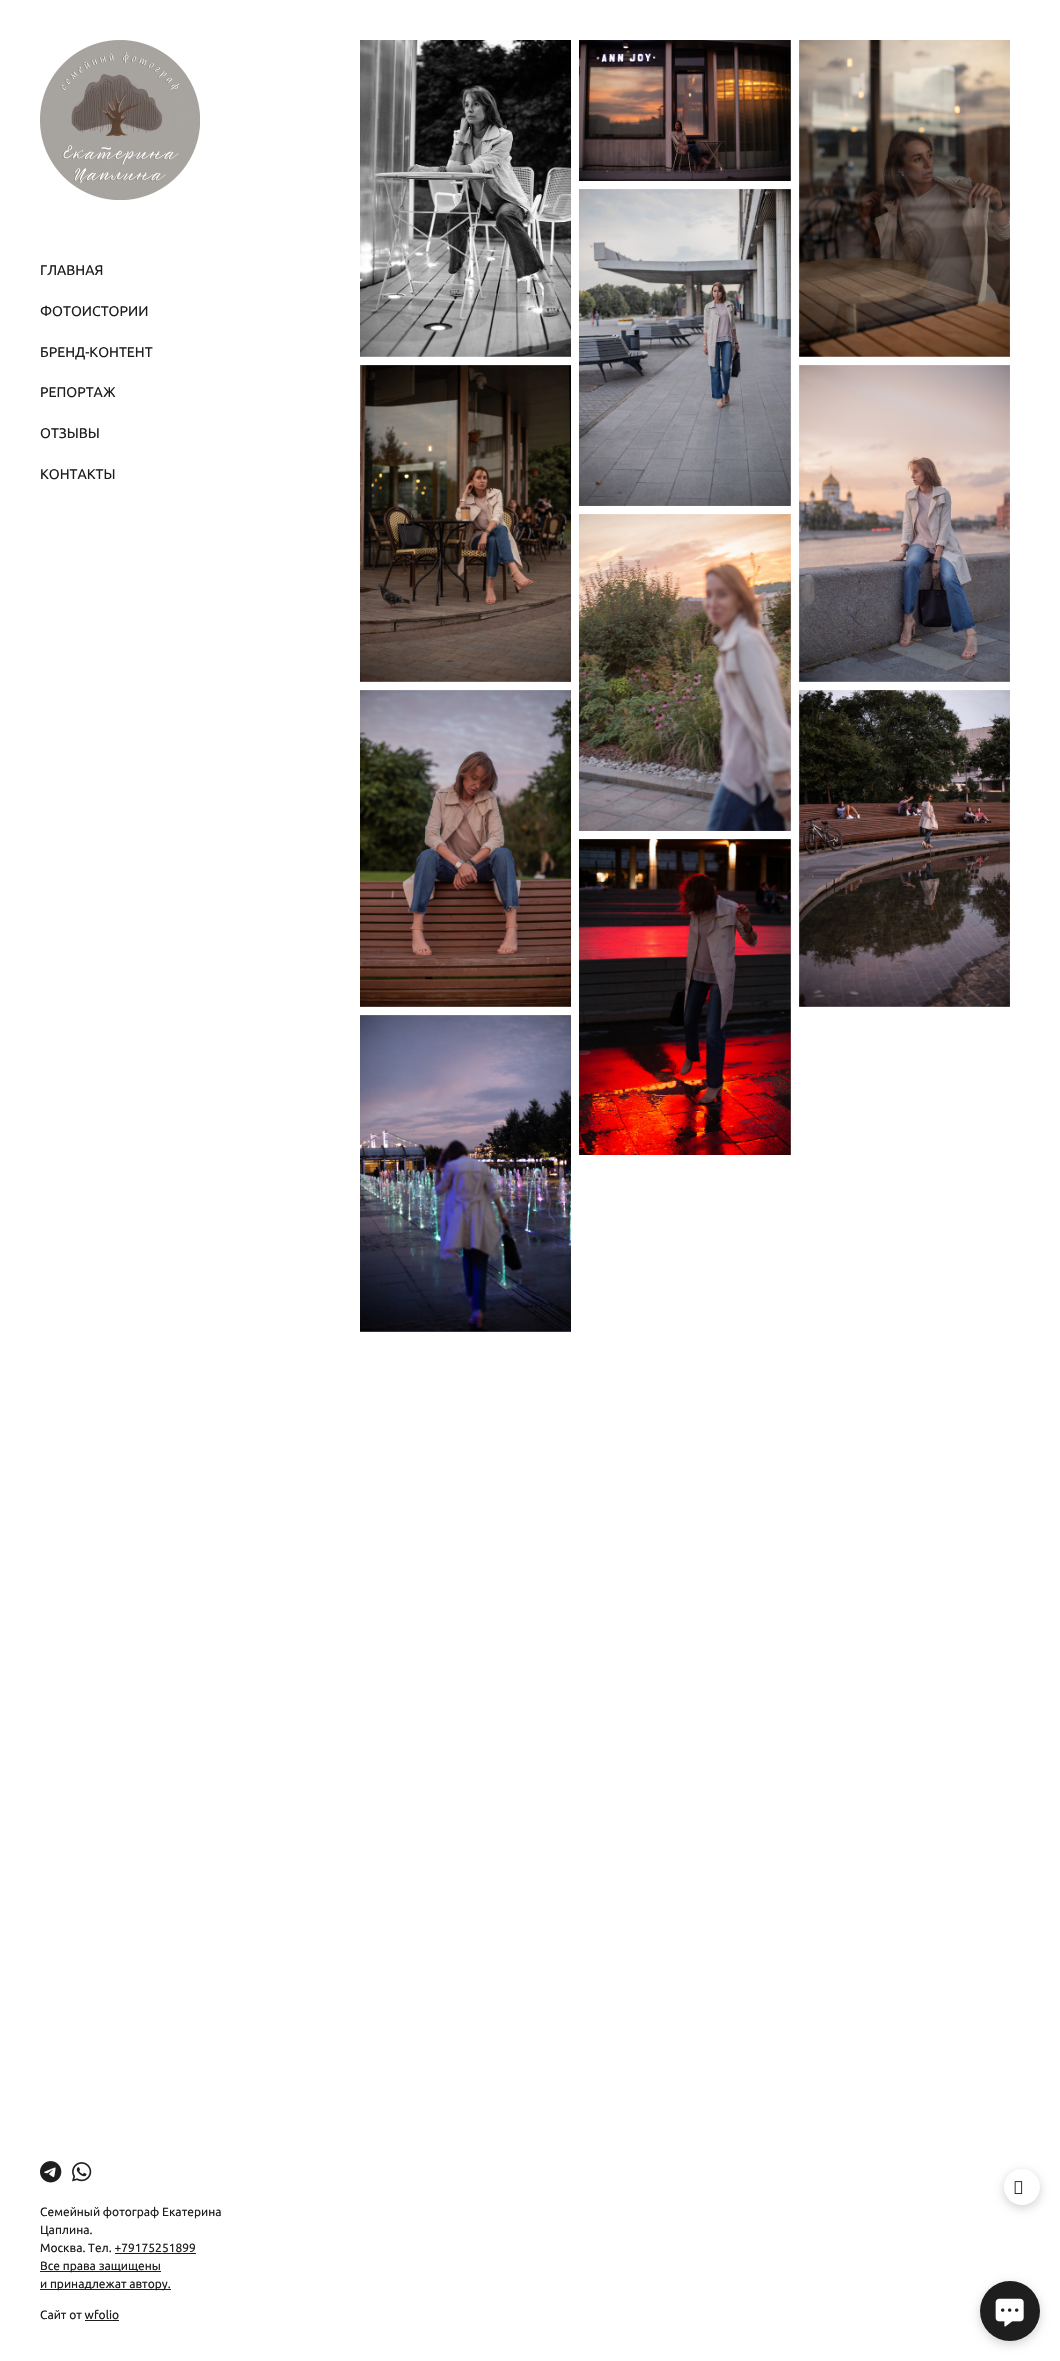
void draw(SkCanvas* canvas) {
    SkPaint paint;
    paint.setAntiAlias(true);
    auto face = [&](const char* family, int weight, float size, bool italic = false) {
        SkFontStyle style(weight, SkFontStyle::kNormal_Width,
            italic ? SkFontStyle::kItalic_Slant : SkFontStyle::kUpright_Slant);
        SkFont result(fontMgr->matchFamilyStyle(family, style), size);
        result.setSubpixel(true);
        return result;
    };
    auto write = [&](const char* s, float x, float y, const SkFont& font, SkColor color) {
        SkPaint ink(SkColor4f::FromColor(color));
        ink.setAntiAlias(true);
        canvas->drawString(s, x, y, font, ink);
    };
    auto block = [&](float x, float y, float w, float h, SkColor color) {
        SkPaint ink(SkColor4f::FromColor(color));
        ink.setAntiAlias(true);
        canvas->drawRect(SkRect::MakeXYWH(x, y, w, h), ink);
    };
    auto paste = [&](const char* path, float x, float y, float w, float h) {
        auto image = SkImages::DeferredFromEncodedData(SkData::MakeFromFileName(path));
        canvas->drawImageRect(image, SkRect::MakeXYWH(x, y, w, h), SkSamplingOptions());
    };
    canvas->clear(SK_ColorWHITE);
    paste("pic1.png", 40, 40, 160, 160);
    auto kFont1 = face("Ubuntu", 400, 14);
    write("ГЛАВНАЯ", 40, 275, kFont1, SkColorSetRGB(30, 30, 30));
    write("ФОТОИСТОРИИ", 40, 316, kFont1, SkColorSetRGB(30, 30, 30));
    write("БРЕНД-КОНТЕНТ", 40, 357, kFont1, SkColorSetRGB(30, 30, 30));
    write("РЕПОРТАЖ", 40, 397, kFont1, SkColorSetRGB(30, 30, 30));
    write("ОТЗЫВЫ", 40, 438, kFont1, SkColorSetRGB(30, 30, 30));
    write("КОНТАКТЫ", 40, 479, kFont1, SkColorSetRGB(30, 30, 30));
    paste("pic2.png", 40, 2161, 22, 22);
    paste("pic3.png", 72, 2162, 20, 20);
    auto kFont2 = face("Ubuntu", 400, 12);
    write("Семейный фотограф Екатерина", 40, 2216, kFont2, SkColorSetRGB(30, 30, 30));
    write("Цаплина.", 40, 2234, kFont2, SkColorSetRGB(30, 30, 30));
    write("Москва. Тел. +79175251899", 40, 2252, kFont2, SkColorSetRGB(30, 30, 30));
    block(115, 2253, 81, 1, SkColorSetRGB(30, 30, 30));
    block(40, 2271, 121, 1, SkColorSetRGB(30, 30, 30));
    write("Все права защищены", 40, 2270, kFont2, SkColorSetRGB(30, 30, 30));
    block(40, 2289, 131, 1, SkColorSetRGB(30, 30, 30));
    write("и принадлежат автору.", 40, 2288, kFont2, SkColorSetRGB(30, 30, 30));
    write("Сайт от wfolio", 40, 2319, kFont2, SkColorSetRGB(30, 30, 30));
    block(85, 2320, 34, 1, SkColorSetRGB(30, 30, 30));
    paste("pic4.png", 360, 40, 211, 317);
    paste("pic5.png", 579, 40, 212, 141);
    paste("pic6.png", 799, 40, 211, 317);
    paste("pic7.png", 360, 365, 211, 317);
    paste("pic8.png", 579, 189, 212, 317);
    paste("pic9.png", 799, 365, 211, 317);
    paste("pic10.png", 360, 690, 211, 317);
    paste("pic11.png", 579, 514, 212, 317);
    paste("pic12.png", 799, 690, 211, 317);
    paste("pic13.png", 360, 1015, 211, 317);
    paste("pic14.png", 579, 839, 212, 316);
    canvas->save();
    canvas->clipPath(SkPathBuilder(SkPathFillType::kEvenOdd).moveTo(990, 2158).lineTo(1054, 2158).lineTo(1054, 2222).lineTo(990, 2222).close().moveTo(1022, 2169).cubicTo(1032, 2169, 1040, 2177, 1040, 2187).cubicTo(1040, 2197, 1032, 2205, 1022, 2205).cubicTo(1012, 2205, 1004, 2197, 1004, 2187).cubicTo(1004, 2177, 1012, 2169, 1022, 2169).close().detach(), true);
    paint.setColor(SkColorSetARGB(38, 0, 0, 0));
    paint.setMaskFilter(SkMaskFilter::MakeBlur(kNormal_SkBlurStyle, 4));
    canvas->drawRoundRect(SkRect::MakeXYWH(1003, 2171, 38, 38), 19, 19, paint);
    paint.setMaskFilter(nullptr);
    canvas->restore();
    paste("pic15.png", 1014, 2181, 9, 13);
    paint.setMaskFilter(SkMaskFilter::MakeBlur(kNormal_SkBlurStyle, 4));
    canvas->drawRoundRect(SkRect::MakeXYWH(979, 2283, 62, 62), 31, 31, paint);
    paint.setMaskFilter(nullptr);
    paint.setColor(SkColorSetRGB(30, 30, 30));
    canvas->drawCircle(1010, 2311, 30, paint);
    paste("pic16.png", 995, 2298, 29, 29);
}
